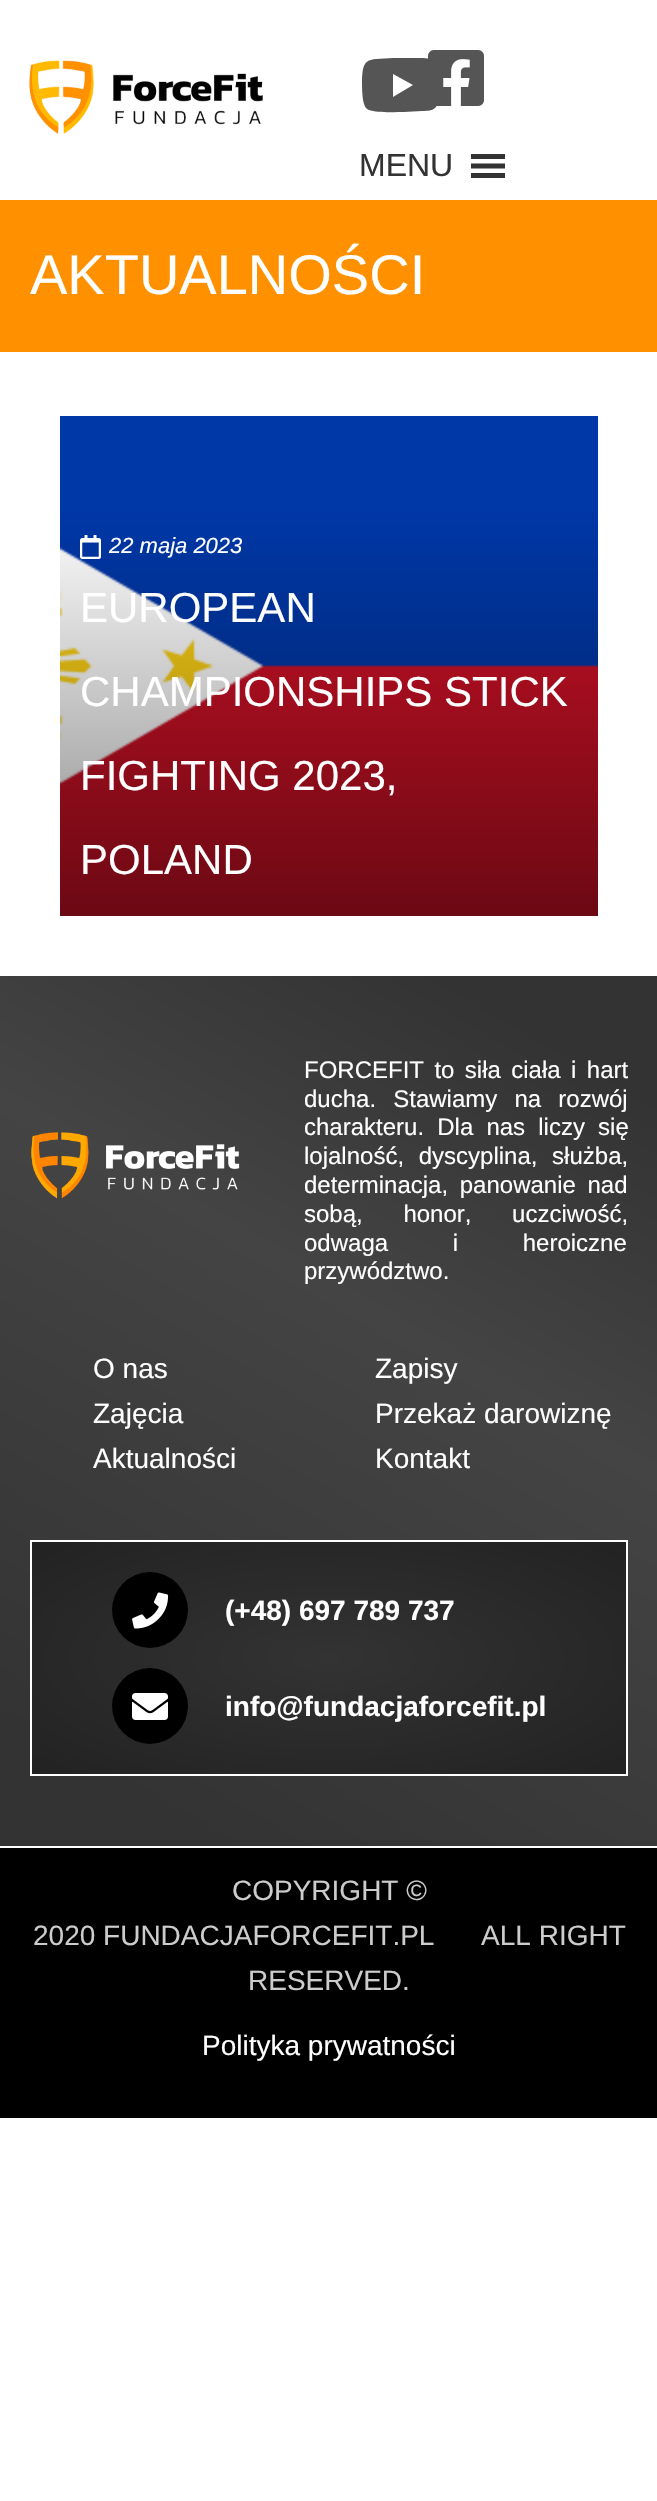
void draw(SkCanvas* canvas) {
    SkPaint paint;
    paint.setAntiAlias(true);
    auto face = [&](const char* family, int weight, float size, bool italic = false) {
        SkFontStyle style(weight, SkFontStyle::kNormal_Width,
            italic ? SkFontStyle::kItalic_Slant : SkFontStyle::kUpright_Slant);
        SkFont result(fontMgr->matchFamilyStyle(family, style), size);
        result.setSubpixel(true);
        return result;
    };
    auto write = [&](const char* s, float x, float y, const SkFont& font, SkColor color) {
        SkPaint ink(SkColor4f::FromColor(color));
        ink.setAntiAlias(true);
        canvas->drawString(s, x, y, font, ink);
    };
    auto writeSpaced = [&](const char* s, float x, float y, const SkFont& font, const SkPaint& ink, float letter, float word) {
        std::vector<SkGlyphID> glyphs(font.countText(s, strlen(s), SkTextEncoding::kUTF8));
        std::vector<float> xs(glyphs.size());
        font.textToGlyphs(s, strlen(s), SkTextEncoding::kUTF8, glyphs);
        font.getXPos(glyphs, xs, x);
        float extra = 0;
        for (size_t i = 0; i < glyphs.size(); i++) {
            xs[i] += extra;
            extra += letter + word * (glyphs[i] == font.unicharToGlyph(' '));
        }
        canvas->drawTextBlob(SkTextBlob::MakeFromPosHGlyphs(glyphs, xs, y, font), 0, 0, ink);
    };
    auto block = [&](float x, float y, float w, float h, SkColor color) {
        SkPaint ink(SkColor4f::FromColor(color));
        ink.setAntiAlias(true);
        canvas->drawRect(SkRect::MakeXYWH(x, y, w, h), ink);
    };
    auto paste = [&](const char* path, float x, float y, float w, float h) {
        auto image = SkImages::DeferredFromEncodedData(SkData::MakeFromFileName(path));
        canvas->drawImageRect(image, SkRect::MakeXYWH(x, y, w, h), SkSamplingOptions());
    };
    canvas->clear(SK_ColorWHITE);
    paste("pic1.png", 29, 60, 234, 74);
    paint.setColor(SkColorSetRGB(85, 85, 85));
    canvas->drawPath(SkPathBuilder().moveTo(437, 66).cubicTo(439, 75, 439, 85, 439, 94).cubicTo(438, 108, 436, 111, 422, 111).lineTo(404, 112).cubicTo(395, 112, 377, 113, 369, 110).cubicTo(366, 109, 365, 107, 364, 104).cubicTo(362, 97, 362, 86, 362, 79).cubicTo(363, 67, 363, 60, 376, 59).lineTo(393, 58).lineTo(416, 58).cubicTo(423, 58, 435, 57, 437, 66).close().moveTo(393, 97).lineTo(413, 85).lineTo(393, 74).close().detach(), paint);
    paste("pic2.png", 428, 50, 56, 56);
    auto kFont1 = face("Liberation Sans", 400, 32);
    write("MENU", 359, 176, kFont1, SkColorSetRGB(51, 51, 51));
    paint.setColor(SkColorSetRGB(51, 51, 51));
    canvas->drawPath(SkPathBuilder().moveTo(471, 178).lineTo(505, 178).lineTo(505, 173).lineTo(471, 173).close().moveTo(471, 154).lineTo(471, 159).lineTo(505, 159).lineTo(505, 154).close().moveTo(471, 168.5f).lineTo(505, 168.5f).lineTo(505, 163.5f).lineTo(471, 163.5f).close().detach(), paint);
    block(0, 200, 657, 152, SkColorSetRGB(255, 144, 0));
    auto kFont2 = face("Liberation Sans", 400, 56);
    write("AKTUALNOŚCI", 30, 294, kFont2, SK_ColorWHITE);
    paste("pic3.png", 60, 416, 538, 500);
    paste("pic4.png", 80, 535, 21, 24);
    auto kFont3 = face("Liberation Sans", 400, 22, true);
    write("22 maja 2023", 109, 553, kFont3, SK_ColorWHITE);
    auto kFont4 = face("Liberation Sans", 400, 42);
    write("EUROPEAN", 80, 622, kFont4, SK_ColorWHITE);
    write("CHAMPIONSHIPS STICK", 80, 706, kFont4, SK_ColorWHITE);
    write("FIGHTING 2023,", 80, 790, kFont4, SK_ColorWHITE);
    write("POLAND", 80, 874, kFont4, SK_ColorWHITE);
    {
        const SkColor colors[] = {SkColorSetRGB(51, 51, 51), SkColorSetRGB(68, 68, 68), SkColorSetRGB(51, 51, 51)};
        const float stops[] = {0.1f, 0.6f, 0.9f};
        const SkPoint ends[] = {{58, 1880}, {600, 942}};
        paint.setShader(SkGradientShader::MakeLinear(ends, colors, stops, 3, SkTileMode::kClamp));
        paint.setAlpha(255);
    }
    canvas->drawRect(SkRect::MakeXYWH(0, 976, 657, 870), paint);
    paste("pic5.png", 31, 1132, 209, 67);
    auto kFont5 = face("Liberation Sans", 400, 24);
    paint.setShader(nullptr);
    paint.setColor(SK_ColorWHITE);
    writeSpaced("FORCEFIT to siła ciała i hart", 304, 1078, kFont5, paint, 0, 3.75f);
    writeSpaced("ducha. Stawiamy na rozwój", 304, 1107, kFont5, paint, 0, 10.5f);
    writeSpaced("charakteru. Dla nas liczy się", 304, 1135, kFont5, paint, 0, 6.5f);
    writeSpaced("lojalność, dyscyplina, służba,", 304, 1164, kFont5, paint, 0, 8);
    writeSpaced("determinacja, panowanie nad", 304, 1193, kFont5, paint, 0, 5);
    writeSpaced("sobą, honor, uczciwość,", 304, 1222, kFont5, paint, 0, 34);
    writeSpaced("odwaga i heroiczne", 304, 1251, kFont5, paint, 0, 58);
    write("przywództwo.", 304, 1279, kFont5, SK_ColorWHITE);
    auto kFont6 = face("Liberation Sans", 400, 28);
    write("O nas", 93, 1378, kFont6, SK_ColorWHITE);
    write("Zajęcia", 93, 1423, kFont6, SK_ColorWHITE);
    write("Aktualności", 93, 1468, kFont6, SK_ColorWHITE);
    write("Zapisy", 375, 1378, kFont6, SK_ColorWHITE);
    write("Przekaż darowiznę", 375, 1423, kFont6, SK_ColorWHITE);
    write("Kontakt", 375, 1468, kFont6, SK_ColorWHITE);
    {
        const SkColor colors[] = {SkColorSetRGB(51, 51, 51), SkColorSetRGB(34, 34, 34)};
        const float stops[] = {0, 1};
        SkMatrix m = SkMatrix::Translate(329, 1658).preScale(420, 164);
        paint.setShader(SkGradientShader::MakeRadial({0, 0}, 1, colors, stops, 2, SkTileMode::kClamp, 0, &m));
        paint.setAlpha(255);
    }
    canvas->drawRect(SkRect::MakeXYWH(32, 1542, 594, 232), paint);
    paint.setStyle(SkPaint::kStroke_Style);
    paint.setStrokeWidth(2);
    paint.setShader(nullptr);
    paint.setColor(SK_ColorWHITE);
    canvas->drawRect(SkRect::MakeXYWH(31, 1541, 596, 234), paint);
    paint.setStyle(SkPaint::kFill_Style);
    paint.setColor(SK_ColorBLACK);
    canvas->drawCircle(150, 1610, 38, paint);
    paste("pic6.png", 132, 1592, 37, 37);
    auto kFont7 = face("Liberation Sans", 700, 28);
    write("(+48) 697 789 737", 225, 1620, kFont7, SK_ColorWHITE);
    canvas->drawCircle(150, 1706, 38, paint);
    paste("pic7.png", 132, 1693, 36, 27);
    write("info@fundacjaforcefit.pl", 225, 1716, kFont7, SK_ColorWHITE);
    block(0, 1848, 657, 270, SK_ColorBLACK);
    write("COPYRIGHT ©", 232, 1900, kFont6, SkColorSetRGB(204, 204, 204));
    write("2020 FUNDACJAFORCEFIT.PL      ALL RIGHT", 33, 1945, kFont6, SkColorSetRGB(204, 204, 204));
    write("RESERVED.", 248, 1990, kFont6, SkColorSetRGB(204, 204, 204));
    write("Polityka prywatności", 202, 2055, kFont6, SK_ColorWHITE);
}
